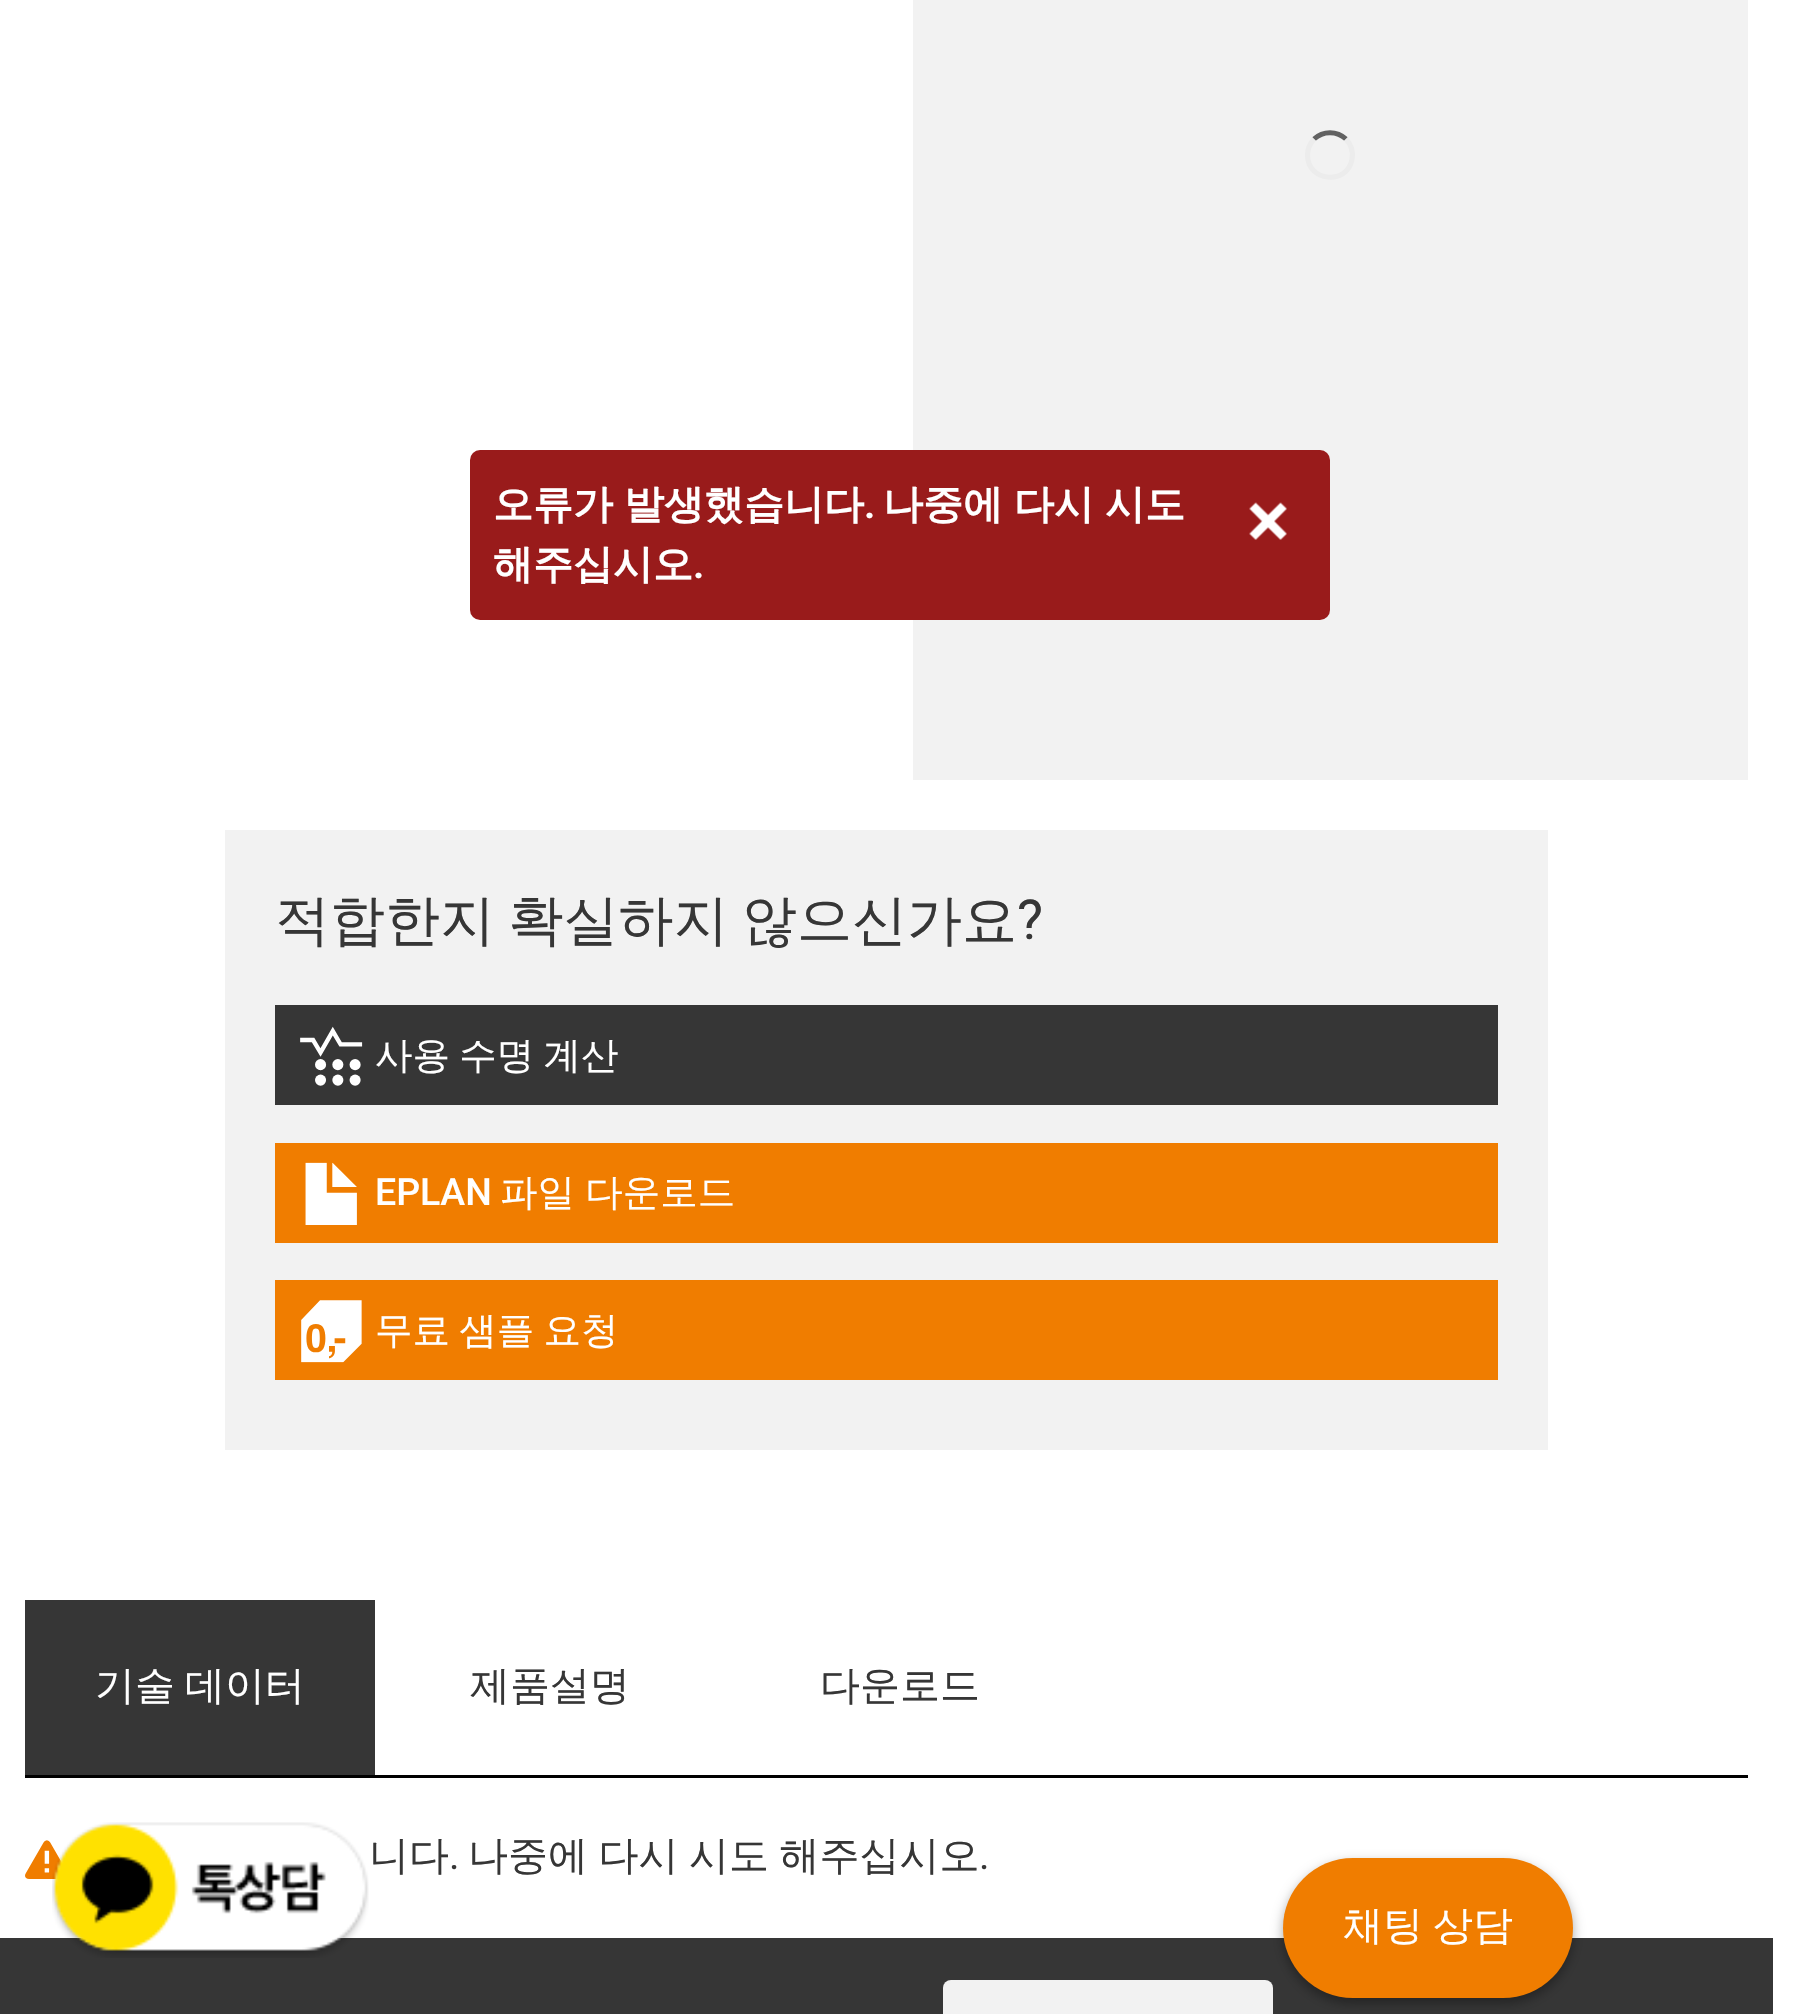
void draw(SkCanvas* canvas) {
    SkPaint paint;
    paint.setAntiAlias(true);
    auto face = [&](const char* family, int weight, float size, bool italic = false) {
        SkFontStyle style(weight, SkFontStyle::kNormal_Width,
            italic ? SkFontStyle::kItalic_Slant : SkFontStyle::kUpright_Slant);
        SkFont result(fontMgr->matchFamilyStyle(family, style), size);
        result.setSubpixel(true);
        return result;
    };
    auto write = [&](const char* s, float x, float y, const SkFont& font, SkColor color) {
        SkPaint ink(SkColor4f::FromColor(color));
        ink.setAntiAlias(true);
        canvas->drawString(s, x, y, font, ink);
    };
    auto writeSpaced = [&](const char* s, float x, float y, const SkFont& font, const SkPaint& ink, float letter, float word) {
        std::vector<SkGlyphID> glyphs(font.countText(s, strlen(s), SkTextEncoding::kUTF8));
        std::vector<float> xs(glyphs.size());
        font.textToGlyphs(s, strlen(s), SkTextEncoding::kUTF8, glyphs);
        font.getXPos(glyphs, xs, x);
        float extra = 0;
        for (size_t i = 0; i < glyphs.size(); i++) {
            xs[i] += extra;
            extra += letter + word * (glyphs[i] == font.unicharToGlyph(' '));
        }
        canvas->drawTextBlob(SkTextBlob::MakeFromPosHGlyphs(glyphs, xs, y, font), 0, 0, ink);
    };
    auto block = [&](float x, float y, float w, float h, SkColor color) {
        SkPaint ink(SkColor4f::FromColor(color));
        ink.setAntiAlias(true);
        canvas->drawRect(SkRect::MakeXYWH(x, y, w, h), ink);
    };
    auto card = [&](float x, float y, float w, float h, float radius, SkColor color) {
        SkPaint ink(SkColor4f::FromColor(color));
        ink.setAntiAlias(true);
        canvas->drawRoundRect(SkRect::MakeXYWH(x, y, w, h), radius, radius, ink);
    };
    auto paste = [&](const char* path, float x, float y, float w, float h) {
        auto image = SkImages::DeferredFromEncodedData(SkData::MakeFromFileName(path));
        canvas->drawImageRect(image, SkRect::MakeXYWH(x, y, w, h), SkSamplingOptions());
    };
    canvas->clear(SK_ColorWHITE);
    block(913, 0, 835, 780, SkColorSetRGB(242, 242, 242));
    card(470, 450, 860, 170, 10, SkColorSetRGB(153, 27, 27));
    auto kFont1 = face("WenQuanYi Zen Hei", 700, 40);
    paint.setColor(SK_ColorWHITE);
    writeSpaced("오류가 발생했습니다", 493, 518, kFont1, paint, 0, -1);
    auto kFont2 = face("Roboto", 600, 40);
    write(".", 864, 518, kFont2, SK_ColorWHITE);
    writeSpaced("나중에 다시 시도", 883, 518, kFont1, paint, 0, -1);
    write("해주십시오", 493, 578, kFont1, SK_ColorWHITE);
    write(".", 693, 578, kFont2, SK_ColorWHITE);
    paste("pic1.png", 1249, 502, 38, 38);
    paint.setStyle(SkPaint::kStroke_Style);
    paint.setStrokeWidth(5);
    paint.setColor(SkColorSetRGB(98, 98, 98));
    canvas->drawPath(SkPathBuilder().moveTo(1314, 139).cubicTo(1323, 130.5f, 1337, 130.5f, 1346, 139).detach(), paint);
    paint.setColor(SkColorSetRGB(236, 236, 236));
    canvas->drawPath(SkPathBuilder().moveTo(1346, 139).cubicTo(1351, 144.5f, 1353.5f, 152, 1352, 159.5f).cubicTo(1347, 185.5f, 1307.5f, 182, 1307.5f, 155).cubicTo(1307.5f, 149, 1310, 143.5f, 1314, 139).detach(), paint);
    block(225, 830, 1323, 620, SkColorSetRGB(242, 242, 242));
    auto kFont3 = face("WenQuanYi Zen Hei", 500, 55);
    paint.setStyle(SkPaint::kFill_Style);
    paint.setColor(SkColorSetRGB(54, 54, 54));
    writeSpaced("적합한지 확실하지 않으신가요", 275, 939, kFont3, paint, 0, -3);
    auto kFont4 = face("Roboto", 400, 55);
    write("?", 1017, 939, kFont4, SkColorSetRGB(54, 54, 54));
    block(275, 1005, 1223, 100, SkColorSetRGB(54, 54, 54));
    paste("pic2.png", 300, 1026, 63, 60);
    auto kFont5 = face("WenQuanYi Zen Hei", 500, 37.5f);
    paint.setColor(SK_ColorWHITE);
    writeSpaced("사용 수명 계산", 375, 1068, kFont5, paint, 0, -2);
    block(275, 1143, 1223, 100, SkColorSetRGB(240, 125, 0));
    paste("pic3.png", 305, 1162, 52, 63);
    auto kFont6 = face("Roboto", 500, 37.5f);
    write("EPLAN", 375, 1205, kFont6, SK_ColorWHITE);
    writeSpaced("파일 다운로드", 500, 1205, kFont5, paint, 0, -1);
    block(275, 1280, 1223, 100, SkColorSetRGB(240, 125, 0));
    paste("pic4.png", 301, 1300, 61, 63);
    writeSpaced("무료 샘플 요청", 375, 1343, kFont5, paint, 0, -2);
    block(25, 1775, 1723, 3, SK_ColorBLACK);
    block(25, 1600, 350, 175, SkColorSetRGB(54, 54, 54));
    auto kFont7 = face("WenQuanYi Zen Hei", 500, 40);
    writeSpaced("기술 데이터", 95, 1699, kFont7, paint, 0, -2);
    write("제품설명", 470, 1699, kFont7, SkColorSetRGB(54, 54, 54));
    write("다운로드", 820, 1699, kFont7, SkColorSetRGB(54, 54, 54));
    paste("pic5.png", 25, 1840, 38, 39);
    paint.setColor(SkColorSetRGB(54, 54, 54));
    writeSpaced("니다", 369, 1869, kFont7, paint, 0, -1.5f);
    auto kFont8 = face("Roboto", 400, 40);
    write(".", 449, 1869, kFont8, SkColorSetRGB(54, 54, 54));
    writeSpaced("나중에 다시 시도 해주십시오", 468, 1869, kFont7, paint, 0, -1.5f);
    write(".", 979, 1869, kFont8, SkColorSetRGB(54, 54, 54));
    block(0, 1938, 1773, 76, SkColorSetRGB(54, 54, 54));
    card(943, 1980, 330, 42, 8, SkColorSetRGB(242, 242, 242));
    paste("pic6.png", 52, 1822, 317, 136);
    paint.setColor(SkColorSetARGB(89, 0, 0, 0));
    paint.setMaskFilter(SkMaskFilter::MakeBlur(kNormal_SkBlurStyle, 6));
    canvas->drawRoundRect(SkRect::MakeXYWH(1283, 1863, 290, 140), 70, 70, paint);
    paint.setMaskFilter(nullptr);
    card(1283, 1858, 290, 140, 70, SkColorSetRGB(240, 125, 0));
    paint.setColor(SK_ColorWHITE);
    writeSpaced("채팅 상담", 1343, 1939, kFont7, paint, 0, -2);
}
